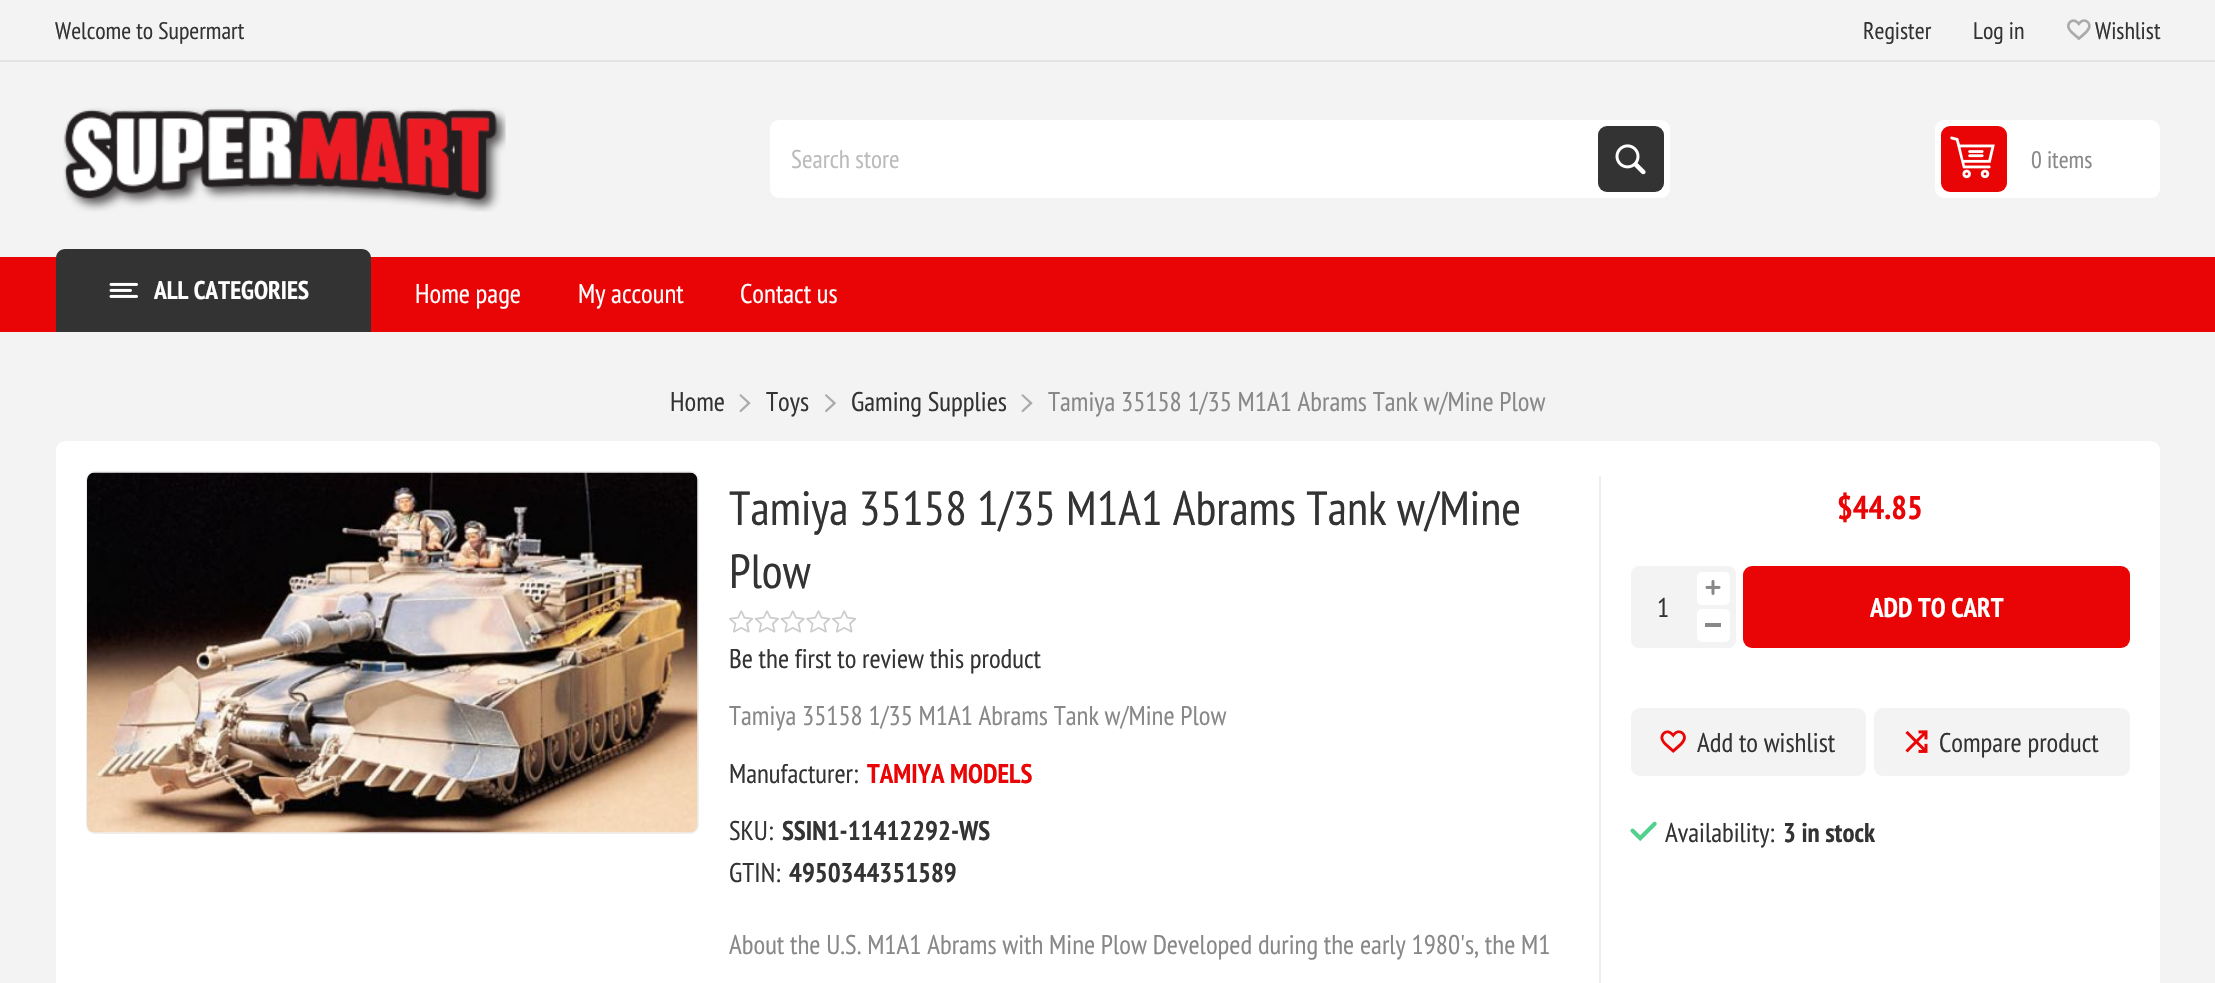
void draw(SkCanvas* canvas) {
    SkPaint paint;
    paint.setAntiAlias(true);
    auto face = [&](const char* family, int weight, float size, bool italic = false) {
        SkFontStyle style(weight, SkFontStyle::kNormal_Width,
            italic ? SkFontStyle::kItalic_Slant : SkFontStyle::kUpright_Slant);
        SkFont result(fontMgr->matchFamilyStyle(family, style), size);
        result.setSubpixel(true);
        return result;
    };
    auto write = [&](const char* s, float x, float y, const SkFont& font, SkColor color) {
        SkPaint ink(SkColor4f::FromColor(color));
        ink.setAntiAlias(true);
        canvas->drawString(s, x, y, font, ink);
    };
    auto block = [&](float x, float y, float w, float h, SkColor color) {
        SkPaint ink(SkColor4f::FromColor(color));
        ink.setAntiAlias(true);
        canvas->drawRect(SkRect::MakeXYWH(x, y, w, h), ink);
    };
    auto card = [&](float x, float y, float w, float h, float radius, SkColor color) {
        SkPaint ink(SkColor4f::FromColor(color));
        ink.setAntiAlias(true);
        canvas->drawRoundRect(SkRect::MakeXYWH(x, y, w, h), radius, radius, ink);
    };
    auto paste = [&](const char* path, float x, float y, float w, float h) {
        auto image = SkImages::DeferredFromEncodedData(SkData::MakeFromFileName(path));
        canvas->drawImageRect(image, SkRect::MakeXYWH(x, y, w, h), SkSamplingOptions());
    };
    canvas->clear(SkColorSetRGB(243, 243, 243));
    auto kFont1 = face("PT Sans Narrow", 400, 24);
    write("Welcome to Supermart", 55, 39, kFont1, SkColorSetRGB(51, 51, 51));
    write("Register", 1863, 39, kFont1, SkColorSetRGB(51, 51, 51));
    write("Log in", 1973, 39, kFont1, SkColorSetRGB(51, 51, 51));
    paste("pic1.png", 2067, 19, 24, 22);
    write("Wishlist", 2095, 39, kFont1, SkColorSetRGB(51, 51, 51));
    block(0, 60, 2215, 2, SkColorSetRGB(227, 227, 227));
    paste("pic2.png", 63, 107, 443, 105);
    card(770, 120, 900, 78, 9, SK_ColorWHITE);
    auto kFont2 = face("PT Sans Narrow", 400, 25.5f);
    write("Search store", 791, 168, kFont2, SkColorSetRGB(187, 187, 187));
    card(1598, 126, 66, 66, 9, SkColorSetRGB(51, 51, 51));
    paste("pic3.png", 1615, 144, 31, 31);
    card(1935, 120, 225, 78, 9, SK_ColorWHITE);
    card(1941, 126, 66, 66, 9, SkColorSetRGB(233, 5, 5));
    paste("pic4.png", 1950, 136, 45, 43);
    write("0 items", 2031, 168, kFont1, SkColorSetRGB(136, 136, 136));
    block(0, 257, 2215, 75, SkColorSetRGB(233, 5, 5));
    paint.setColor(SkColorSetRGB(51, 51, 51));
    canvas->drawPath(SkPathBuilder().moveTo(65, 249).lineTo(362, 249).cubicTo(367, 249, 371, 253, 371, 258).lineTo(371, 332).lineTo(56, 332).lineTo(56, 258).cubicTo(56, 253, 60, 249, 65, 249).close().detach(), paint);
    paste("pic5.png", 109, 282, 29, 16);
    auto kFont3 = face("PT Sans Narrow", 700, 25.5f);
    write("ALL CATEGORIES", 154, 299, kFont3, SK_ColorWHITE);
    auto kFont4 = face("PT Sans Narrow", 400, 27);
    write("Home page", 415, 303, kFont4, SK_ColorWHITE);
    write("My account", 578, 303, kFont4, SK_ColorWHITE);
    write("Contact us", 740, 303, kFont4, SK_ColorWHITE);
    write("Home", 670, 411, kFont4, SkColorSetRGB(51, 51, 51));
    paste("pic6.png", 739, 394, 12, 19);
    write("Toys", 766, 411, kFont4, SkColorSetRGB(51, 51, 51));
    paste("pic7.png", 825, 394, 11, 19);
    write("Gaming Supplies", 851, 411, kFont4, SkColorSetRGB(51, 51, 51));
    paste("pic6.png", 1021, 394, 12, 19);
    write("Tamiya 35158 1/35 M1A1 Abrams Tank w/Mine Plow", 1048, 411, kFont4, SkColorSetRGB(136, 136, 136));
    card(56, 441, 2104, 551, 9, SK_ColorWHITE);
    paint.setStyle(SkPaint::kStroke_Style);
    paint.setStrokeWidth(2);
    paint.setColor(SkColorSetRGB(238, 238, 238));
    canvas->drawRoundRect(SkRect::MakeXYWH(87, 472, 611, 361), 8, 8, paint);
    paste("pic8.png", 87, 472, 611, 361);
    auto kFont5 = face("PT Sans Narrow", 400, 48);
    write("Tamiya 35158 1/35 M1A1 Abrams Tank w/Mine", 729, 525, kFont5, SkColorSetRGB(51, 51, 51));
    write("Plow", 729, 588, kFont5, SkColorSetRGB(51, 51, 51));
    paste("pic9.png", 729, 610, 127, 23);
    write("Be the first to review this product", 729, 668, kFont4, SkColorSetRGB(51, 51, 51));
    write("Tamiya 35158 1/35 M1A1 Abrams Tank w/Mine Plow", 729, 725, kFont4, SkColorSetRGB(136, 136, 136));
    write("Manufacturer:", 729, 783, kFont4, SkColorSetRGB(51, 51, 51));
    auto kFont6 = face("PT Sans Narrow", 700, 27);
    write("TAMIYA MODELS", 867, 783, kFont6, SkColorSetRGB(233, 5, 5));
    write("SKU:", 729, 840, kFont4, SkColorSetRGB(51, 51, 51));
    write("SSIN1-11412292-WS", 782, 840, kFont6, SkColorSetRGB(51, 51, 51));
    write("GTIN:", 729, 882, kFont4, SkColorSetRGB(51, 51, 51));
    write("4950344351589", 789, 882, kFont6, SkColorSetRGB(51, 51, 51));
    write("About the U.S. M1A1 Abrams with Mine Plow Developed during the early 1980's, the M1", 729, 954, kFont4, SkColorSetRGB(136, 136, 136));
    block(1599, 476, 2, 507, SkColorSetRGB(238, 238, 238));
    auto kFont7 = face("PT Sans Narrow", 700, 33);
    write("$44.85", 1837, 519, kFont7, SkColorSetRGB(233, 5, 5));
    card(1631, 566, 105, 82, 8, SkColorSetRGB(243, 243, 243));
    card(1697, 572, 33, 33, 5, SK_ColorWHITE);
    paste("pic10.png", 1705, 580, 16, 15);
    write("1", 1657, 617, kFont4, SkColorSetRGB(51, 51, 51));
    card(1697, 609, 33, 33, 5, SK_ColorWHITE);
    block(1705, 623, 16, 4, SkColorSetRGB(136, 136, 136));
    card(1743, 566, 387, 82, 9, SkColorSetRGB(233, 5, 5));
    write("ADD TO CART", 1870, 617, kFont6, SK_ColorWHITE);
    card(1631, 708, 235, 68, 9, SkColorSetRGB(243, 243, 243));
    paste("pic11.png", 1660, 730, 26, 23);
    write("Add to wishlist", 1697, 752, kFont4, SkColorSetRGB(51, 51, 51));
    card(1874, 708, 256, 68, 9, SkColorSetRGB(243, 243, 243));
    paste("pic12.png", 1905, 730, 23, 23);
    write("Compare product", 1939, 752, kFont4, SkColorSetRGB(51, 51, 51));
    paste("pic13.png", 1630, 821, 27, 21);
    write("Availability:", 1665, 842, kFont4, SkColorSetRGB(51, 51, 51));
    write("3 in stock", 1783, 842, kFont6, SkColorSetRGB(51, 51, 51));
}
